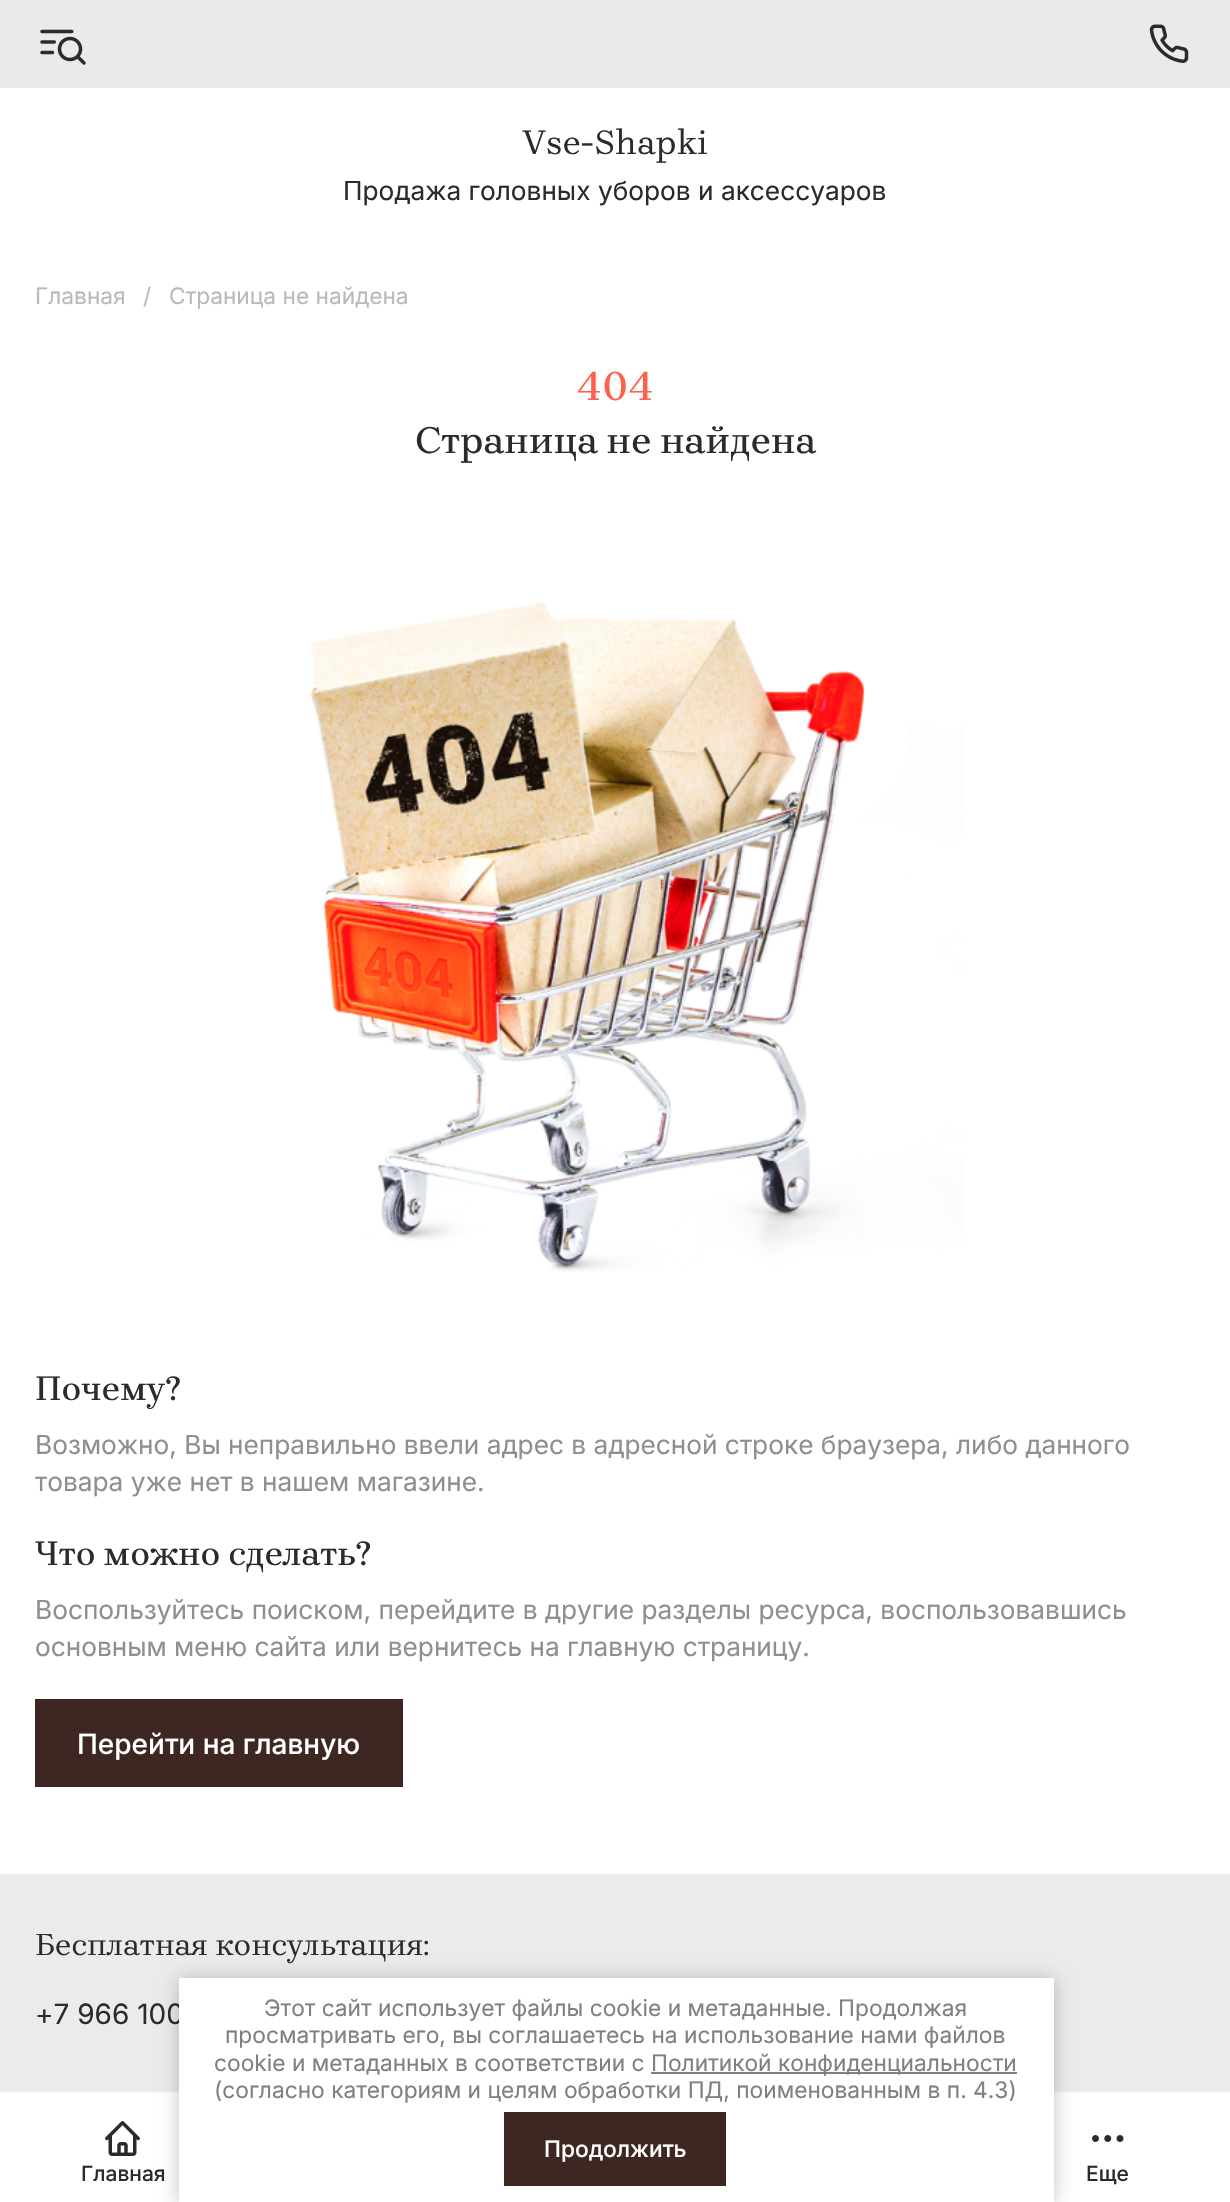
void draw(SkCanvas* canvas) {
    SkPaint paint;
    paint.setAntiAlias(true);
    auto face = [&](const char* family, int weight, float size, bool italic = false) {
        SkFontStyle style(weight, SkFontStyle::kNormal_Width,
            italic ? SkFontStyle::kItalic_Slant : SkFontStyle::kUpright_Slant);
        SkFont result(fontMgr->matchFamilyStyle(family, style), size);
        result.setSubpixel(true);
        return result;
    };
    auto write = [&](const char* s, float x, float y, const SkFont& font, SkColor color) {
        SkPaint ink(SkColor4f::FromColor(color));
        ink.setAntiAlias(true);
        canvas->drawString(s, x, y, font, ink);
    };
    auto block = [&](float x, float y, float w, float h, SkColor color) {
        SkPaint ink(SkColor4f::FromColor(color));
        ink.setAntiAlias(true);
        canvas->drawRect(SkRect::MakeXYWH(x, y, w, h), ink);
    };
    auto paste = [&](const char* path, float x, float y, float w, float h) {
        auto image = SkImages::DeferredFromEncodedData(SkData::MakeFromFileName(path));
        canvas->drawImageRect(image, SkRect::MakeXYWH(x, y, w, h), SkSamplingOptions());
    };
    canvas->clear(SK_ColorWHITE);
    block(0, 0, 1230, 88, SkColorSetRGB(236, 234, 233));
    paste("pic1.png", 40, 29, 46, 36);
    paste("pic2.png", 1149, 24, 40, 39);
    auto kFont1 = face("Brygada 1918", 400, 35);
    write("Vse-Shapki", 522, 154, kFont1, SkColorSetRGB(43, 43, 43));
    auto kFont2 = face("Inter", 400, 26.25f);
    write("Продажа головных уборов и аксессуаров", 343, 200, kFont2, SkColorSetRGB(43, 43, 43));
    auto kFont3 = face("Inter", 400, 22.75f);
    write("Главная", 35, 304, kFont3, SkColorSetRGB(185, 185, 185));
    write("/", 143, 304, kFont3, SkColorSetRGB(185, 185, 185));
    write("Страница не найдена", 169, 304, kFont3, SkColorSetRGB(185, 185, 185));
    auto kFont4 = face("Brygada 1918", 500, 42);
    write("404", 576, 400, kFont4, SkColorSetRGB(255, 96, 78));
    auto kFont5 = face("Brygada 1918", 500, 38.5f);
    write("Страница не найдена", 415, 453, kFont5, SkColorSetRGB(43, 43, 43));
    paste("pic3.png", 306, 602, 659, 670);
    auto kFont6 = face("Brygada 1918", 500, 35);
    write("Почему?", 35, 1400, kFont6, SkColorSetRGB(43, 43, 43));
    write("Возможно, Вы неправильно ввели адрес в адресной строке браузера, либо данного", 35, 1454, kFont2, SkColorSetRGB(143, 143, 143));
    write("товара уже нет в нашем магазине.", 35, 1491, kFont2, SkColorSetRGB(143, 143, 143));
    write("Что можно сделать?", 35, 1565, kFont6, SkColorSetRGB(43, 43, 43));
    write("Воспользуйтесь поиском, перейдите в другие разделы ресурса, воспользовавшись", 35, 1619, kFont2, SkColorSetRGB(143, 143, 143));
    write("основным меню сайта или вернитесь на главную страницу.", 35, 1656, kFont2, SkColorSetRGB(143, 143, 143));
    block(35, 1699, 368, 88, SkColorSetRGB(62, 39, 35));
    auto kFont7 = face("Inter", 500, 28);
    write("Перейти на главную", 77, 1754, kFont7, SK_ColorWHITE);
    block(0, 1874, 1230, 217, SkColorSetRGB(236, 234, 234));
    auto kFont8 = face("Brygada 1918", 400, 31.5f);
    write("Бесплатная консультация:", 35, 1955, kFont8, SkColorSetRGB(43, 43, 43));
    auto kFont9 = face("Inter", 400, 28);
    write("+7 966 100", 35, 2024, kFont9, SkColorSetRGB(43, 43, 43));
    block(0, 2091, 1230, 2, SkColorSetRGB(243, 243, 243));
    paste("pic4.png", 105, 2121, 35, 35);
    auto kFont10 = face("Inter", 500, 21);
    write("Главная", 81, 2181, kFont10, SkColorSetRGB(43, 43, 43));
    paste("pic5.png", 1092, 2135, 32, 7);
    write("Еще", 1086, 2181, kFont10, SkColorSetRGB(43, 43, 43));
    paint.setColor(SkColorSetARGB(59, 0, 0, 0));
    paint.setMaskFilter(SkMaskFilter::MakeBlur(kNormal_SkBlurStyle, 9));
    canvas->drawRect(SkRect::MakeXYWH(179, 1979, 875, 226), paint);
    paint.setMaskFilter(nullptr);
    block(179, 1978, 875, 224, SK_ColorWHITE);
    write("Этот сайт использует файлы cookie и метаданные. Продолжая", 264, 2016, kFont3, SkColorSetRGB(128, 128, 128));
    write("просматривать его, вы соглашаетесь на использование нами файлов", 225, 2043, kFont3, SkColorSetRGB(128, 128, 128));
    write("cookie и метаданных в соответствии с", 214, 2071, kFont3, SkColorSetRGB(128, 128, 128));
    block(651, 2072, 366, 2, SkColorSetRGB(128, 128, 128));
    write("Политикой конфиденциальности", 651, 2071, kFont3, SkColorSetRGB(128, 128, 128));
    write("(согласно категориям и целям обработки ПД, поименованным в п. 4.3)", 214, 2098, kFont3, SkColorSetRGB(128, 128, 128));
    block(504, 2112, 222, 74, SkColorSetRGB(62, 39, 35));
    auto kFont11 = face("Inter", 500, 22.75f);
    write("Продолжить", 544, 2157, kFont11, SK_ColorWHITE);
}
